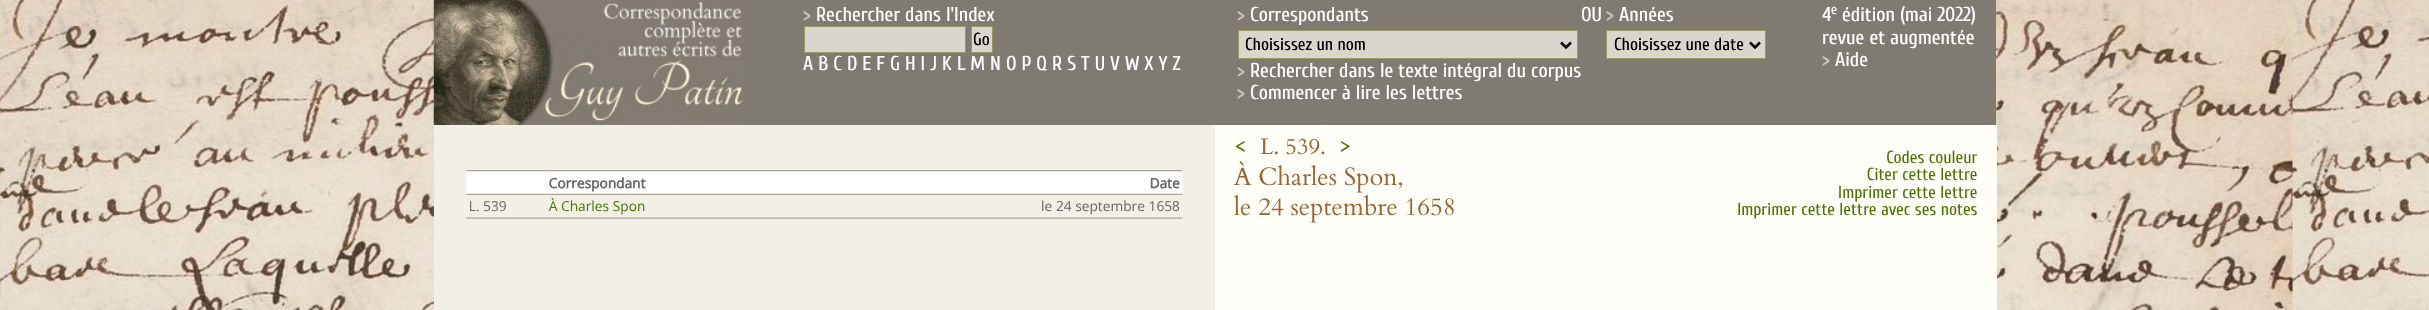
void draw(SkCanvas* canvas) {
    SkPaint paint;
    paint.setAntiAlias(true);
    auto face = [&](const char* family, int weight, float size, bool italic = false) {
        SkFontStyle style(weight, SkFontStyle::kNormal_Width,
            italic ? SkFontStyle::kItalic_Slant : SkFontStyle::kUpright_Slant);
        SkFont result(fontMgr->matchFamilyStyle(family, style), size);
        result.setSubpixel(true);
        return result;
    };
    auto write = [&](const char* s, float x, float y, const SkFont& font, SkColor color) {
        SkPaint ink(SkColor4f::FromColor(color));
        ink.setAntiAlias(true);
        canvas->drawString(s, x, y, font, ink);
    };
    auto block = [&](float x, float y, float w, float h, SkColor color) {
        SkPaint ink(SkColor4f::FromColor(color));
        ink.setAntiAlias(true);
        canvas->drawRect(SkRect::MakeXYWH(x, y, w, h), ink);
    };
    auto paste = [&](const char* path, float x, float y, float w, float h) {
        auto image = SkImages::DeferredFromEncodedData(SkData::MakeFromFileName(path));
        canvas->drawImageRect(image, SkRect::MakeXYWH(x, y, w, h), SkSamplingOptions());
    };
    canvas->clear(SK_ColorWHITE);
    paste("pic1.png", 0, 0, 2429, 310);
    block(744, 0, 1252, 125, SkColorSetRGB(127, 123, 115));
    paste("pic2.png", 433, 0, 311, 125);
    auto kFont1 = face("Cuprum", 400, 20);
    write(">", 803, 21, kFont1, SkColorSetRGB(205, 201, 190));
    write("Rechercher dans l'Index", 816, 21, kFont1, SK_ColorWHITE);
    paint.setColor(SkColorSetRGB(217, 214, 205));
    canvas->drawRect(SkRect::MakeXYWH(804.5f, 26.5f, 161, 26), paint);
    paint.setStyle(SkPaint::kStroke_Style);
    paint.setStrokeWidth(1);
    paint.setColor(SkColorSetRGB(153, 153, 102));
    canvas->drawRect(SkRect::MakeXYWH(804.5f, 26.5f, 161, 26), paint);
    paint.setStyle(SkPaint::kFill_Style);
    paint.setColor(SkColorSetRGB(217, 214, 205));
    canvas->drawRect(SkRect::MakeXYWH(971.5f, 26.5f, 21, 26), paint);
    paint.setStyle(SkPaint::kStroke_Style);
    paint.setColor(SkColorSetRGB(153, 153, 102));
    canvas->drawRect(SkRect::MakeXYWH(971.5f, 26.5f, 21, 26), paint);
    auto kFont2 = face("Cuprum", 400, 17.5f);
    write("Go", 973, 45, kFont2, SK_ColorBLACK);
    write("A B C D E F G H I J K L M N O P Q R S T U V W X Y Z", 803, 70, kFont1, SK_ColorWHITE);
    write(">", 1237, 21, kFont1, SkColorSetRGB(205, 201, 190));
    write("Correspondants", 1250, 21, kFont1, SK_ColorWHITE);
    write("OU", 1581, 21, kFont1, SK_ColorWHITE);
    write(">", 1606, 21, kFont1, SkColorSetRGB(205, 201, 190));
    write("Années", 1619, 21, kFont1, SK_ColorWHITE);
    paint.setStyle(SkPaint::kFill_Style);
    paint.setColor(SkColorSetRGB(217, 214, 205));
    canvas->drawRect(SkRect::MakeXYWH(1238.5f, 30.5f, 339, 28), paint);
    paint.setStyle(SkPaint::kStroke_Style);
    paint.setColor(SkColorSetRGB(153, 153, 102));
    canvas->drawRect(SkRect::MakeXYWH(1238.5f, 30.5f, 339, 28), paint);
    paint.setStrokeWidth(2.5f);
    paint.setColor(SK_ColorBLACK);
    canvas->drawPath(SkPathBuilder().moveTo(1561, 42.5f).lineTo(1566, 47.5f).lineTo(1571, 42.5f).detach(), paint);
    write("Choisissez un nom", 1245, 50, kFont2, SK_ColorBLACK);
    paint.setStyle(SkPaint::kFill_Style);
    paint.setColor(SkColorSetRGB(217, 214, 205));
    canvas->drawRect(SkRect::MakeXYWH(1606.5f, 30.5f, 159, 28), paint);
    paint.setStyle(SkPaint::kStroke_Style);
    paint.setStrokeWidth(1);
    paint.setColor(SkColorSetRGB(153, 153, 102));
    canvas->drawRect(SkRect::MakeXYWH(1606.5f, 30.5f, 159, 28), paint);
    paint.setStrokeWidth(2.5f);
    paint.setColor(SK_ColorBLACK);
    canvas->drawPath(SkPathBuilder().moveTo(1750, 42.5f).lineTo(1755, 47.5f).lineTo(1760, 42.5f).detach(), paint);
    write("Choisissez une date", 1614, 50, kFont2, SK_ColorBLACK);
    write(">", 1237, 77, kFont1, SkColorSetRGB(205, 201, 190));
    write("Rechercher dans le texte intégral du corpus", 1250, 77, kFont1, SK_ColorWHITE);
    write(">", 1237, 99, kFont1, SkColorSetRGB(205, 201, 190));
    write("Commencer à lire les lettres", 1250, 99, kFont1, SK_ColorWHITE);
    write("4", 1822, 21, kFont1, SK_ColorWHITE);
    auto kFont3 = face("Cuprum", 400, 14);
    write("e", 1831, 14, kFont3, SK_ColorWHITE);
    write("édition (mai 2022)", 1842, 21, kFont1, SK_ColorWHITE);
    write("revue et augmentée", 1822, 44, kFont1, SK_ColorWHITE);
    write(">", 1822, 66, kFont1, SkColorSetRGB(205, 201, 190));
    write("Aide", 1835, 66, kFont1, SK_ColorWHITE);
    paste("pic3.png", 433, 125, 782, 185);
    paste("pic4.png", 1215, 125, 782, 185);
}
